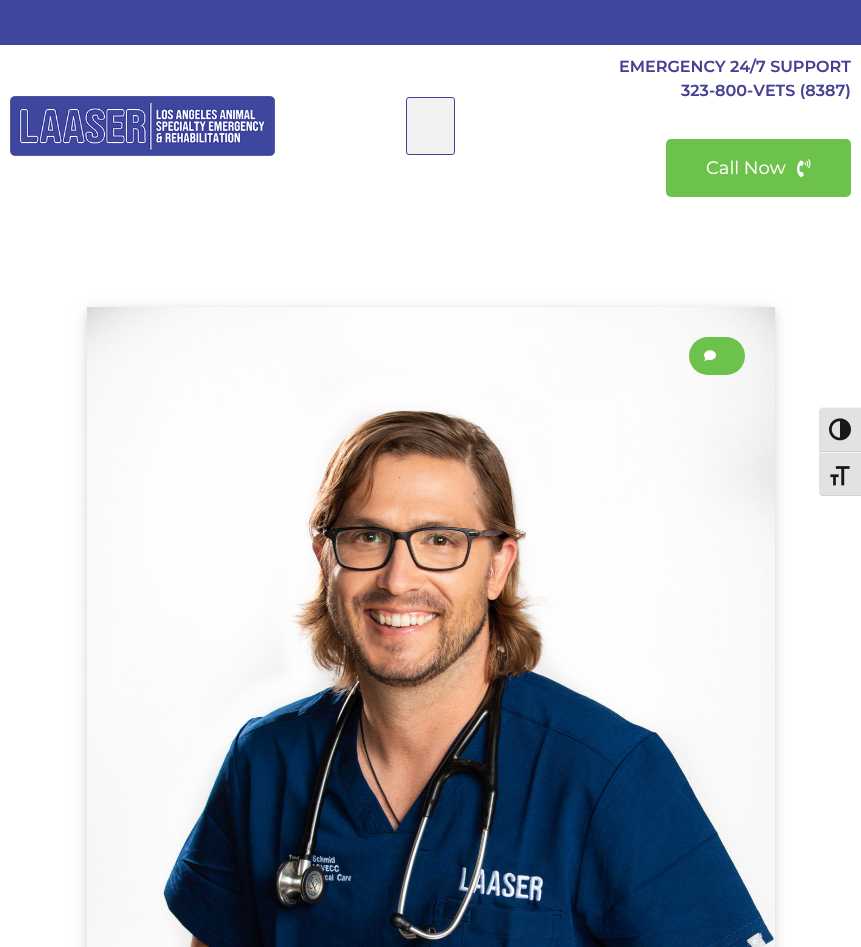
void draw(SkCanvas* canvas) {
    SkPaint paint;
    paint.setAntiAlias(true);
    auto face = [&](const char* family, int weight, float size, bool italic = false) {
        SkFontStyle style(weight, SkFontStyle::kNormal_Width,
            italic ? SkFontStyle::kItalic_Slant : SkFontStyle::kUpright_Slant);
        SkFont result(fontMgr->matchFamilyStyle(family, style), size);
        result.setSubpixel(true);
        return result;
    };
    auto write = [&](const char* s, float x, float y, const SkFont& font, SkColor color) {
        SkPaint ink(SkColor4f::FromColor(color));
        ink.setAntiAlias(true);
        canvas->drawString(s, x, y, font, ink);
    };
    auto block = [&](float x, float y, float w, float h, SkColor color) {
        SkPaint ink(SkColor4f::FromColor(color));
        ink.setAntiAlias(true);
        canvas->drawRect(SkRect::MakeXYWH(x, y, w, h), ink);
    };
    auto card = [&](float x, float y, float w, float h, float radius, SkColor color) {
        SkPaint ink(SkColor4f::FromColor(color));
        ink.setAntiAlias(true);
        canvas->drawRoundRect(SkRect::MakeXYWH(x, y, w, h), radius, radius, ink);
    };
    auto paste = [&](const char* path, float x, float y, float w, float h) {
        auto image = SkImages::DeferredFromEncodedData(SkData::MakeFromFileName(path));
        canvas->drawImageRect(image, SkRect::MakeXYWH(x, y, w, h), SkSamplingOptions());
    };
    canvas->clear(SK_ColorWHITE);
    block(0, 0, 861, 45, SkColorSetRGB(63, 70, 157));
    paste("pic1.png", 10, 96, 265, 60);
    paint.setColor(SkColorSetRGB(242, 242, 242));
    canvas->drawRoundRect(SkRect::MakeXYWH(406.5f, 97.5f, 48, 57), 2.5f, 2.5f, paint);
    paint.setStyle(SkPaint::kStroke_Style);
    paint.setStrokeWidth(1);
    paint.setColor(SkColorSetRGB(70, 64, 147));
    canvas->drawRoundRect(SkRect::MakeXYWH(406.5f, 97.5f, 48, 57), 2.5f, 2.5f, paint);
    auto kFont1 = face("Montserrat", 600, 16);
    write("EMERGENCY 24/7 SUPPORT", 619, 72, kFont1, SkColorSetRGB(70, 64, 147));
    write("323-800-VETS (8387)", 681, 96, kFont1, SkColorSetRGB(70, 64, 147));
    card(666, 139, 185, 58, 5, SkColorSetRGB(108, 194, 74));
    auto kFont2 = face("Montserrat", 400, 18);
    write("Call Now", 706, 174, kFont2, SK_ColorWHITE);
    paste("pic2.png", 797, 159, 14, 19);
    paint.setStyle(SkPaint::kFill_Style);
    paint.setColor(SkColorSetARGB(51, 1, 1, 47));
    paint.setMaskFilter(SkMaskFilter::MakeBlur(kNormal_SkBlurStyle, 6));
    canvas->drawRect(SkRect::MakeXYWH(88, 311, 686, 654), paint);
    paint.setMaskFilter(nullptr);
    paste("pic3.png", 87, 307, 688, 640);
    card(689, 337, 56, 38, 19, SkColorSetRGB(108, 194, 74));
    paste("pic4.png", 704, 350, 12, 11);
    paint.setColor(SkColorSetRGB(226, 226, 226));
    canvas->drawPath(SkPathBuilder().moveTo(823, 407).lineTo(861, 407).lineTo(861, 452).lineTo(819, 452).lineTo(819, 411).cubicTo(819, 409, 821, 407, 823, 407).close().detach(), paint);
    paint.setColor(SkColorSetRGB(245, 245, 245));
    canvas->drawPath(SkPathBuilder().moveTo(823, 408).lineTo(861, 408).lineTo(861, 407).lineTo(823, 407).cubicTo(821, 407, 819, 409, 819, 411).cubicTo(819, 409, 821, 408, 823, 408).close().detach(), paint);
    block(819, 451, 42, 1, SkColorSetRGB(210, 210, 210));
    paste("pic5.png", 829, 418, 22, 23);
    paint.setColor(SkColorSetRGB(226, 226, 226));
    canvas->drawPath(SkPathBuilder().moveTo(819, 452).lineTo(861, 452).lineTo(861, 496).lineTo(823, 496).cubicTo(821, 496, 819, 494, 819, 492).close().detach(), paint);
    block(819, 452, 42, 1, SkColorSetRGB(245, 245, 245));
    paint.setColor(SkColorSetRGB(210, 210, 210));
    canvas->drawPath(SkPathBuilder().moveTo(861, 496).lineTo(861, 495).lineTo(823, 495).cubicTo(821, 495, 819, 494, 819, 492).cubicTo(819, 494, 821, 496, 823, 496).close().detach(), paint);
    paste("pic6.png", 830, 466, 20, 20);
}
